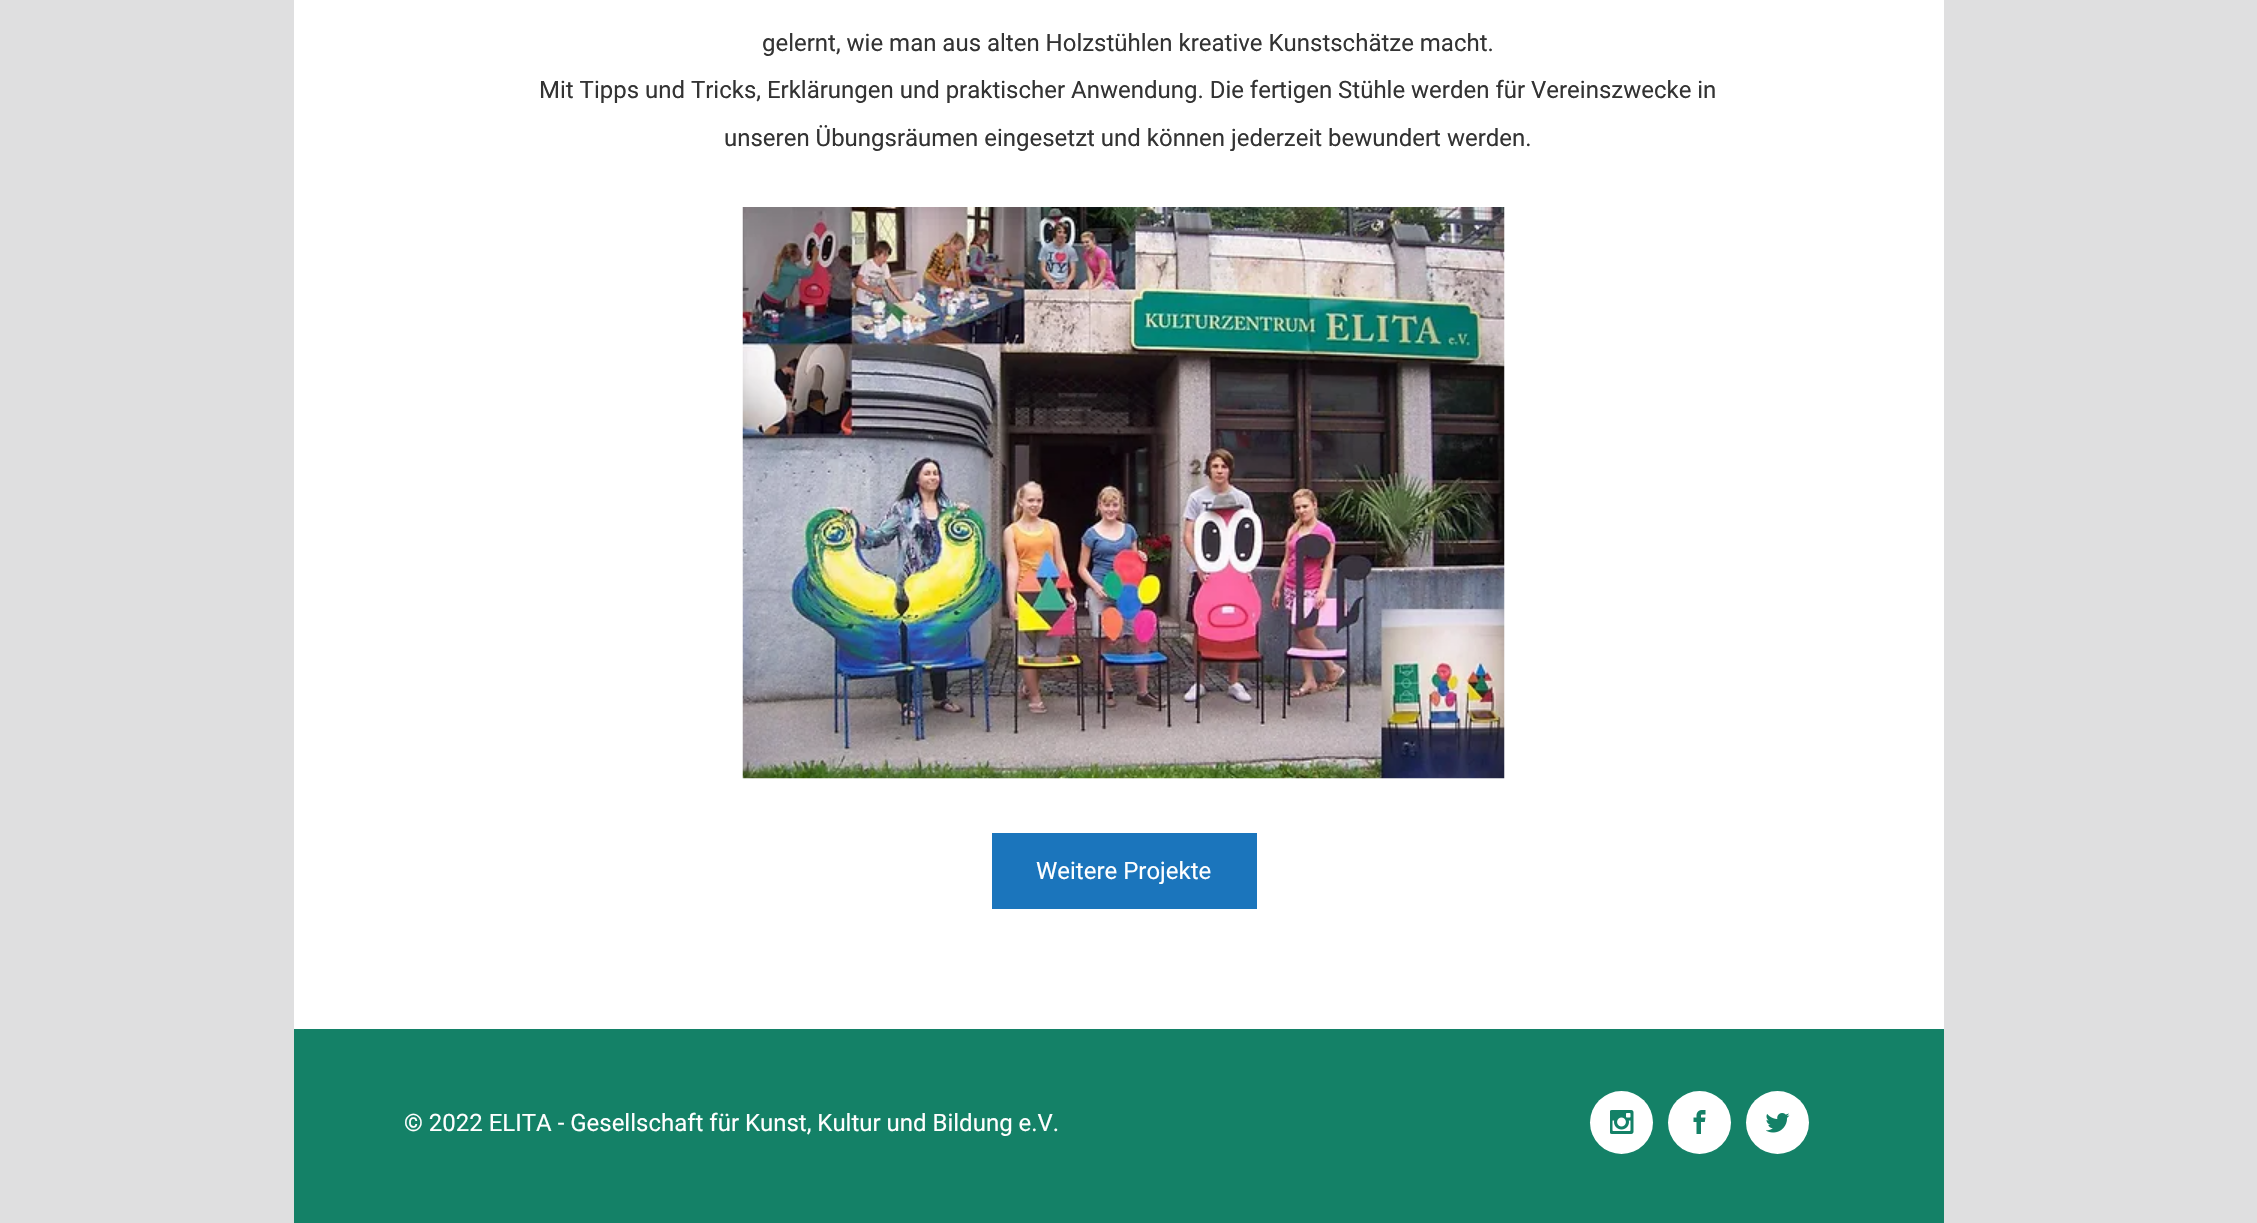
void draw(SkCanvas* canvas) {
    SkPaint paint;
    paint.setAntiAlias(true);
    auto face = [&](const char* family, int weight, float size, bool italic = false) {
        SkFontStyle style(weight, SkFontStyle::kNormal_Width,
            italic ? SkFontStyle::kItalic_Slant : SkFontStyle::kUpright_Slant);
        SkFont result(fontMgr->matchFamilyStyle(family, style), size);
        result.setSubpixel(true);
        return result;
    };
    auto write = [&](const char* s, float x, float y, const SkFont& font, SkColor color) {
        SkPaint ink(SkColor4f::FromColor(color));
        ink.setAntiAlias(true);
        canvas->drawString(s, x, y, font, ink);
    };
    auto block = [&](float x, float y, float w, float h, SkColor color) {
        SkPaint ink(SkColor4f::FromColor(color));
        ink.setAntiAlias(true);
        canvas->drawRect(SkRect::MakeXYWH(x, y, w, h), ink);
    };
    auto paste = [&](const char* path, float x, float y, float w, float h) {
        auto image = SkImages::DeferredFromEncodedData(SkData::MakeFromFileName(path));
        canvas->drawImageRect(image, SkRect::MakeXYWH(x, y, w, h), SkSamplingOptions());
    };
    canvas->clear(SkColorSetRGB(223, 223, 224));
    block(294, 0, 1650, 1029, SK_ColorWHITE);
    auto kFont1 = face("Roboto", 400, 24);
    write("gelernt, wie man aus alten Holzstühlen kreative Kunstschätze macht.", 762, 51, kFont1, SkColorSetRGB(51, 51, 51));
    write("Mit Tipps und Tricks, Erklärungen und praktischer Anwendung. Die fertigen Stühle werden für Vereinszwecke in", 539, 98, kFont1, SkColorSetRGB(51, 51, 51));
    write("unseren Übungsräumen eingesetzt und können jederzeit bewundert werden.", 724, 146, kFont1, SkColorSetRGB(51, 51, 51));
    paste("pic1.png", 742, 207, 763, 572);
    block(992, 833, 265, 76, SkColorSetRGB(27, 117, 188));
    write("Weitere Projekte", 1036, 879, kFont1, SK_ColorWHITE);
    block(294, 1029, 1650, 194, SkColorSetRGB(20, 129, 103));
    write("© 2022 ELITA - Gesellschaft für Kunst, Kultur und Bildung e.V.", 404, 1131, kFont1, SK_ColorWHITE);
    paint.setColor(SK_ColorWHITE);
    canvas->drawCircle(1621.5f, 1122.5f, 31.5f, paint);
    paste("pic2.png", 1610, 1110, 24, 24);
    canvas->drawCircle(1699.5f, 1122.5f, 31.5f, paint);
    paste("pic3.png", 1693, 1110, 13, 24);
    canvas->drawCircle(1777.5f, 1122.5f, 31.5f, paint);
    paste("pic4.png", 1766, 1113, 24, 20);
}
